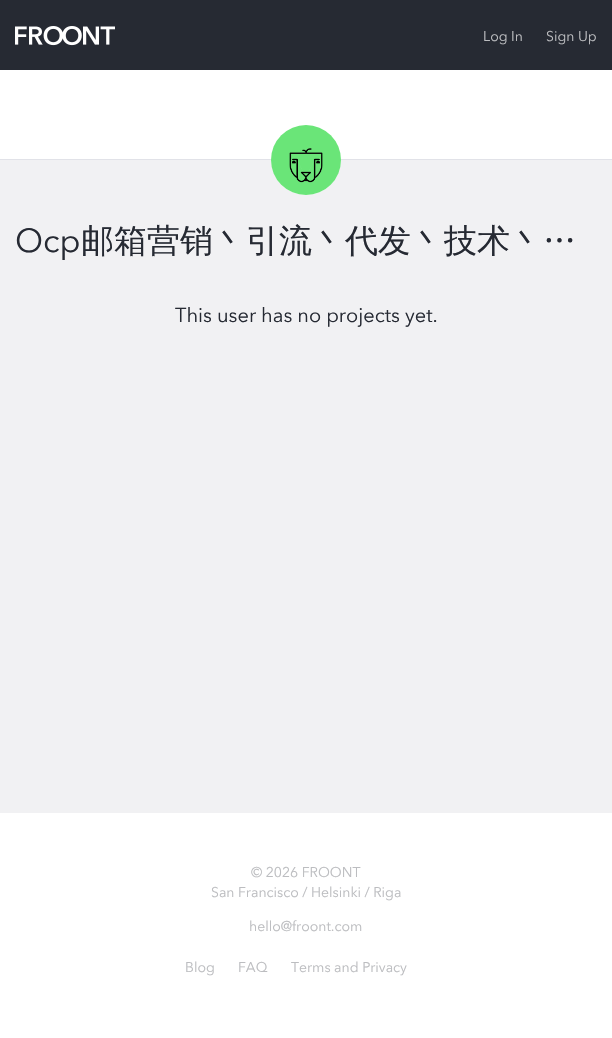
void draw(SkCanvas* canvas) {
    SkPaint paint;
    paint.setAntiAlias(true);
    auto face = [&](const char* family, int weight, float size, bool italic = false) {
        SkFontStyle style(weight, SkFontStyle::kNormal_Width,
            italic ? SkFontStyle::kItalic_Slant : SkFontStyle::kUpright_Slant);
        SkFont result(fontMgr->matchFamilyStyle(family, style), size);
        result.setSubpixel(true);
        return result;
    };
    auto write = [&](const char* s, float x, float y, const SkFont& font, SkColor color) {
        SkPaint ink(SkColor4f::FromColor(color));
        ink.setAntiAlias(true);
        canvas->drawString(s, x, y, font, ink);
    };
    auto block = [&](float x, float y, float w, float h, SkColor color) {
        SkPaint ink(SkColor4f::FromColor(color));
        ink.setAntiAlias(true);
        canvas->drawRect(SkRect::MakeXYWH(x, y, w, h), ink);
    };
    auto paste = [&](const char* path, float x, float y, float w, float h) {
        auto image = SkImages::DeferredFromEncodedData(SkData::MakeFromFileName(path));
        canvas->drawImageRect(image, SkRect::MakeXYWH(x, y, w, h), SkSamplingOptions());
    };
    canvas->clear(SkColorSetRGB(241, 241, 243));
    block(0, 0, 612, 70, SkColorSetRGB(38, 42, 51));
    paste("pic1.png", 15, 26, 100, 20);
    auto kFont1 = face("Avenir Next", 400, 14);
    write("Log In", 483, 41, kFont1, SkColorSetRGB(188, 189, 192));
    write("Sign Up", 546, 41, kFont1, SkColorSetRGB(188, 189, 192));
    block(0, 70, 612, 89, SK_ColorWHITE);
    block(0, 159, 612, 1, SkColorSetRGB(225, 226, 232));
    paint.setColor(SK_ColorWHITE);
    canvas->drawCircle(306, 160, 35, paint);
    paste("pic2.png", 271, 125, 70, 70);
    auto kFont2 = face("Avenir Next", 400, 33);
    write("Ocp", 15, 252, kFont2, SkColorSetRGB(38, 42, 51));
    auto kFont3 = face("WenQuanYi Zen Hei", 500, 33);
    write("邮箱营销丶引流丶代发丶技术丶…", 81, 252, kFont3, SkColorSetRGB(38, 42, 51));
    auto kFont4 = face("Avenir Next", 400, 20);
    write("This user has no projects yet.", 175, 322, kFont4, SkColorSetRGB(38, 42, 51));
    block(0, 813, 612, 225, SK_ColorWHITE);
    write("© 2026 FROONT", 251, 877, kFont1, SkColorSetRGB(188, 189, 192));
    write("San Francisco / Helsinki / Riga", 211, 897, kFont1, SkColorSetRGB(188, 189, 192));
    write("hello@froont.com", 249, 931, kFont1, SkColorSetRGB(188, 189, 192));
    write("Blog", 185, 972, kFont1, SkColorSetRGB(188, 189, 192));
    write("FAQ", 238, 972, kFont1, SkColorSetRGB(188, 189, 192));
    write("Terms and Privacy", 291, 972, kFont1, SkColorSetRGB(188, 189, 192));
}
